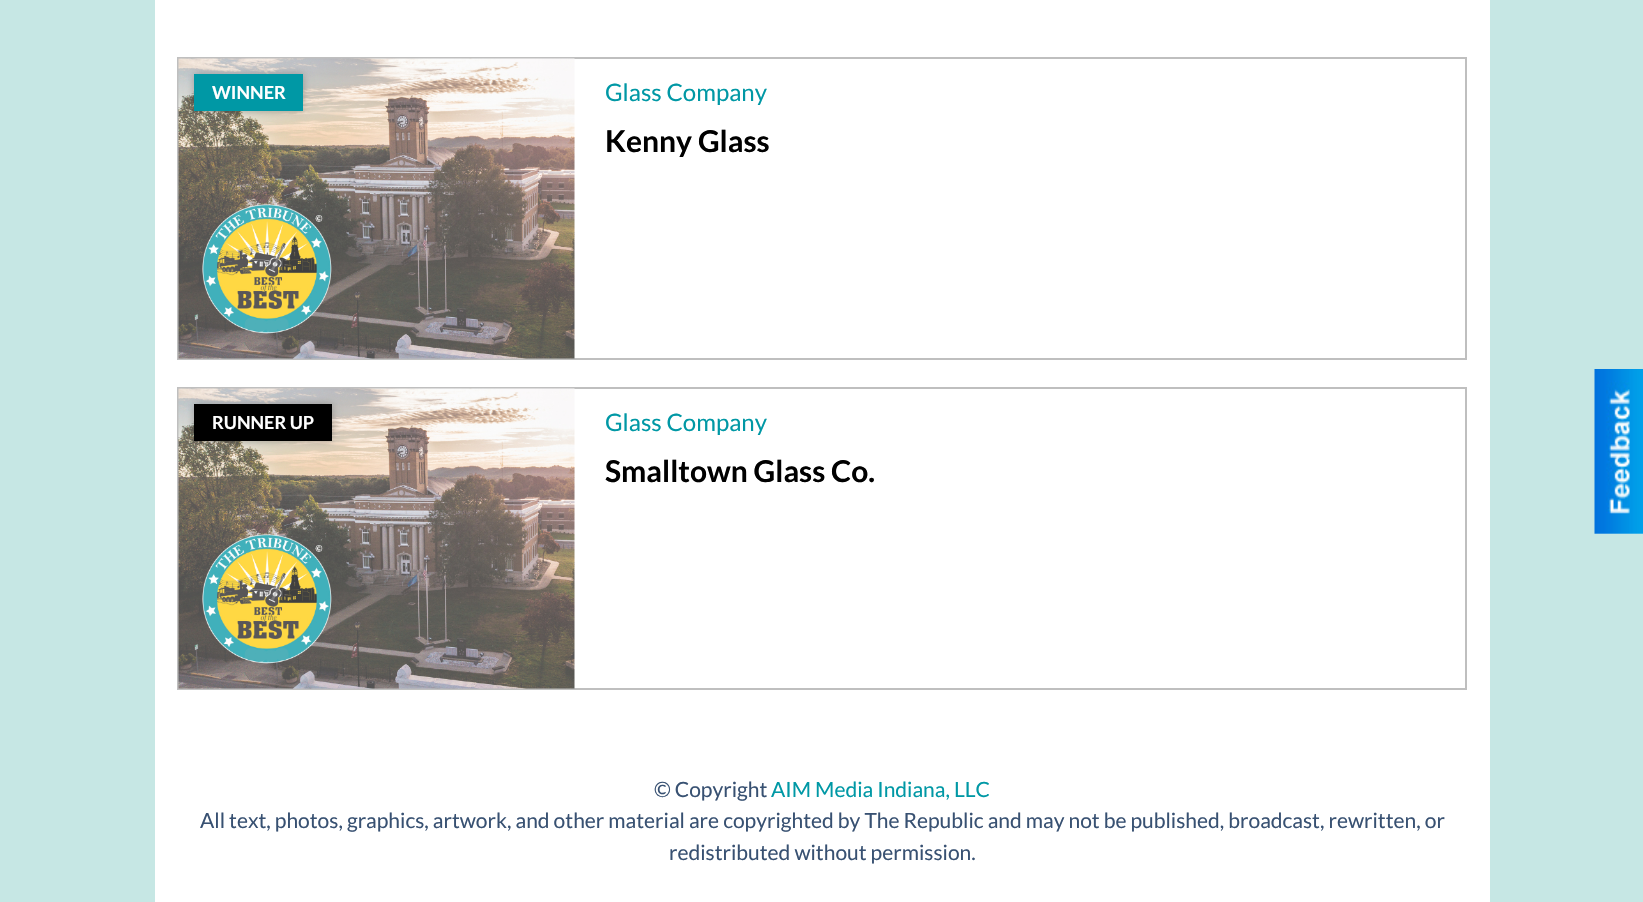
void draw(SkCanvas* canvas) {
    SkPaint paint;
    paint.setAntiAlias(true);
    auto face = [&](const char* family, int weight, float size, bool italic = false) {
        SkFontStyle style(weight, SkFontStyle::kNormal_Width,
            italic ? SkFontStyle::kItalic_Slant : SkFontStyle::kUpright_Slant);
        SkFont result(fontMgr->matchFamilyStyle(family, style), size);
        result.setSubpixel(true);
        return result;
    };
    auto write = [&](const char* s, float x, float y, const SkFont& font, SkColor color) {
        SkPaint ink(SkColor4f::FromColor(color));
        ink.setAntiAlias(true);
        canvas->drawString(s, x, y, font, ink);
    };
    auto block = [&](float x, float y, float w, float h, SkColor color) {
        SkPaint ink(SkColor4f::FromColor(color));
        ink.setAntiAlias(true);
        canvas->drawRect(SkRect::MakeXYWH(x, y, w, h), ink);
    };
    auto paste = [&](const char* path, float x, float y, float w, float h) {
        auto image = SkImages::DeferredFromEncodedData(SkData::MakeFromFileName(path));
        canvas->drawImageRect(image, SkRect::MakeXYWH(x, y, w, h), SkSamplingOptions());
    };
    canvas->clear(SkColorSetRGB(198, 231, 228));
    block(155, 0, 1335, 902, SK_ColorWHITE);
    paint.setStyle(SkPaint::kStroke_Style);
    paint.setStrokeWidth(2);
    paint.setColor(SkColorSetRGB(191, 191, 191));
    canvas->drawRect(SkRect::MakeXYWH(178, 58, 1288, 301), paint);
    paste("pic1.png", 178, 58, 397, 301);
    paint.setStyle(SkPaint::kFill_Style);
    paint.setColor(SkColorSetARGB(64, 0, 0, 0));
    paint.setMaskFilter(SkMaskFilter::MakeBlur(kNormal_SkBlurStyle, 4));
    canvas->drawRect(SkRect::MakeXYWH(194, 74, 109, 37), paint);
    paint.setMaskFilter(nullptr);
    block(194, 74, 109, 37, SkColorSetRGB(0, 152, 165));
    auto kFont1 = face("Lato", 700, 18);
    write("WINNER", 212, 99, kFont1, SK_ColorWHITE);
    auto kFont2 = face("Lato", 400, 24);
    write("Glass Company", 605, 101, kFont2, SkColorSetRGB(0, 152, 165));
    auto kFont3 = face("Lato", 700, 30);
    write("Kenny Glass", 605, 152, kFont3, SK_ColorBLACK);
    paint.setStyle(SkPaint::kStroke_Style);
    paint.setColor(SkColorSetRGB(191, 191, 191));
    canvas->drawRect(SkRect::MakeXYWH(178, 388, 1288, 301), paint);
    paste("pic1.png", 178, 388, 397, 301);
    paint.setStyle(SkPaint::kFill_Style);
    paint.setColor(SkColorSetARGB(64, 0, 0, 0));
    paint.setMaskFilter(SkMaskFilter::MakeBlur(kNormal_SkBlurStyle, 4));
    canvas->drawRect(SkRect::MakeXYWH(194, 404, 138, 37), paint);
    paint.setMaskFilter(nullptr);
    block(194, 404, 138, 37, SK_ColorBLACK);
    write("RUNNER UP", 212, 429, kFont1, SK_ColorWHITE);
    write("Glass Company", 605, 431, kFont2, SkColorSetRGB(0, 152, 165));
    write("Smalltown Glass Co.", 605, 482, kFont3, SK_ColorBLACK);
    paste("pic2.png", 1594, 369, 49, 165);
    auto kFont4 = face("Lato", 400, 21);
    write("© Copyright", 654, 797, kFont4, SkColorSetRGB(56, 81, 114));
    write("AIM Media Indiana, LLC", 771, 797, kFont4, SkColorSetRGB(0, 152, 165));
    write("All text, photos, graphics, artwork, and other material are copyrighted by The Republic and may not be published, broadcast, rewritten, or", 200, 828, kFont4, SkColorSetRGB(56, 81, 114));
    write("redistributed without permission.", 669, 860, kFont4, SkColorSetRGB(56, 81, 114));
}
